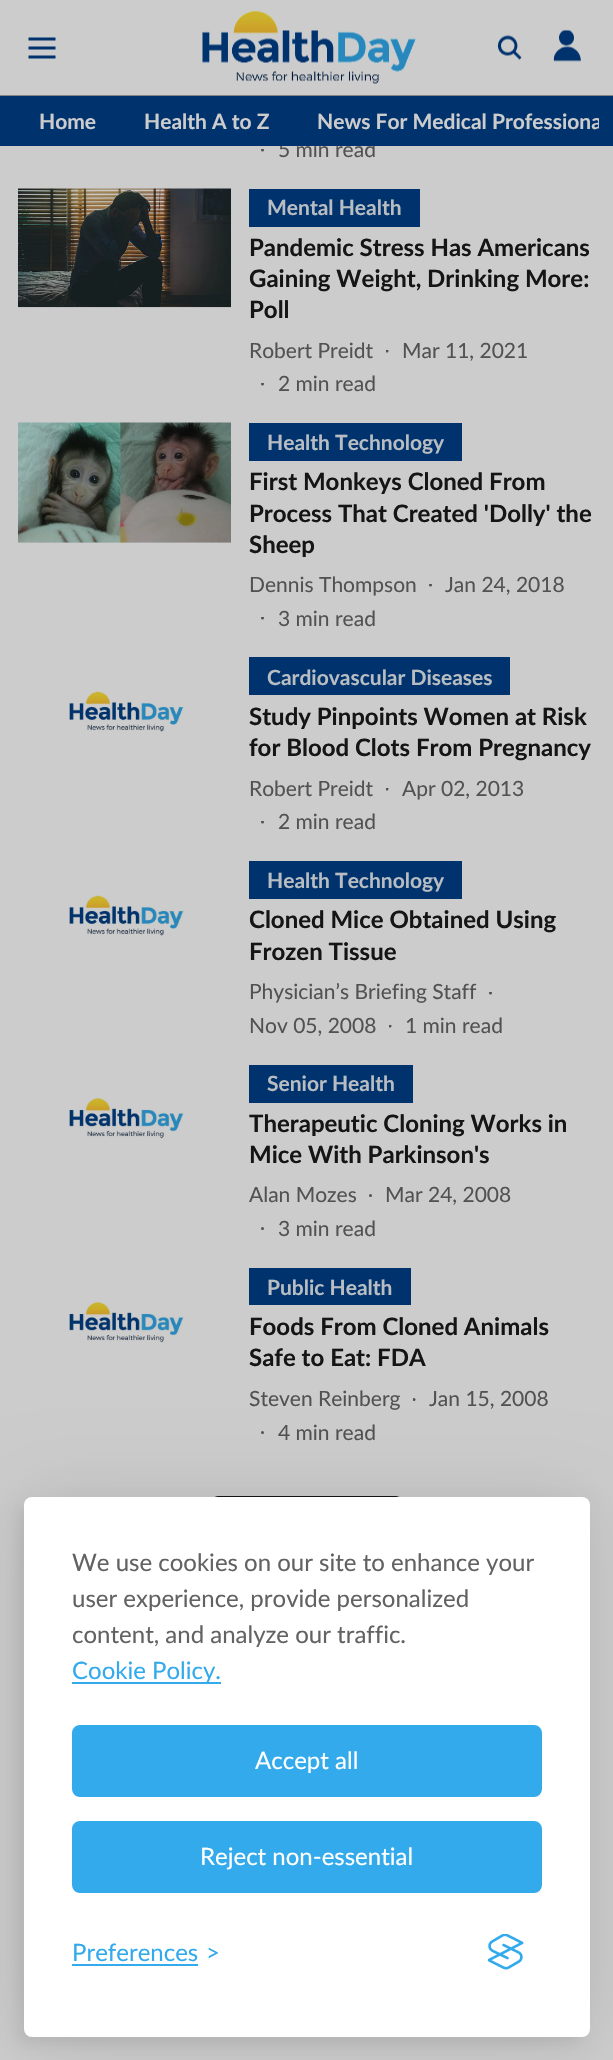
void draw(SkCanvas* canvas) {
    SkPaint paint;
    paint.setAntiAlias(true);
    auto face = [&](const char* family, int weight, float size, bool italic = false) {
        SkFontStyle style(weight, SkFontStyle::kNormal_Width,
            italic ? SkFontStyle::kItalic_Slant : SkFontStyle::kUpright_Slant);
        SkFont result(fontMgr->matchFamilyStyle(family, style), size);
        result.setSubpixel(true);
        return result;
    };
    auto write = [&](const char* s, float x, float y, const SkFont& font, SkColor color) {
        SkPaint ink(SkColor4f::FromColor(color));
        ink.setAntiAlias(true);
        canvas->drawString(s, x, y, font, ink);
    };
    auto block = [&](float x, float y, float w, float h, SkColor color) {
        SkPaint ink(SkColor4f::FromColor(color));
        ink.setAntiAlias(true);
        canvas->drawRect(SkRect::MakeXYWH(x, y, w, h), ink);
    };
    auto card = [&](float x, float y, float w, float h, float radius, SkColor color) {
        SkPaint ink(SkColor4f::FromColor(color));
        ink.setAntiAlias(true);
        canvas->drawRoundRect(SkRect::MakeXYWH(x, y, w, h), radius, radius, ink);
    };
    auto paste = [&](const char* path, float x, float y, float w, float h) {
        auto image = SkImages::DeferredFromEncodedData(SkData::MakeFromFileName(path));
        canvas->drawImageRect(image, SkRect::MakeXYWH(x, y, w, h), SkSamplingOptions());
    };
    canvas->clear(SkColorSetRGB(204, 204, 204));
    block(0, 95, 613, 1, SkColorSetRGB(131, 131, 131));
    paste("pic1.png", 28, 37, 28, 22);
    paste("pic2.png", 202, 10, 214, 74);
    paste("pic3.png", 497, 35, 25, 25);
    paste("pic4.png", 553, 29, 28, 33);
    auto kFont1 = face("Lato", 400, 21);
    write("5 min read", 278, 157, kFont1, SkColorSetRGB(82, 82, 82));
    block(0, 96, 613, 50, SkColorSetRGB(0, 51, 110));
    auto kFont2 = face("Lato", 700, 21);
    write("Home", 39, 129, kFont2, SkColorSetRGB(204, 204, 204));
    write("Health A to Z", 144, 129, kFont2, SkColorSetRGB(204, 204, 204));
    canvas->save();
    canvas->clipRect(SkRect::MakeXYWH(15, 96, 584, 50));
    write("News For Medical Professiona", 317, 129, kFont2, SkColorSetRGB(204, 204, 204));
    canvas->restore();
    canvas->save();
    canvas->clipRect(SkRect::MakeXYWH(261, 149, 5, 5));
    paint.setColor(SkColorSetRGB(82, 82, 82));
    canvas->drawCircle(262.5f, 150, 1.5f, paint);
    canvas->restore();
    block(18, 307, 213, 1, SkColorSetRGB(192, 192, 192));
    paste("pic5.png", 18, 188, 213, 119);
    block(249, 189, 171, 38, SkColorSetRGB(0, 51, 110));
    write("Mental Health", 267, 215, kFont2, SkColorSetRGB(184, 189, 194));
    auto kFont3 = face("Lato", 700, 24);
    write("Pandemic Stress Has Americans", 249, 256, kFont3, SkColorSetRGB(21, 21, 21));
    write("Gaining Weight, Drinking More:", 249, 287, kFont3, SkColorSetRGB(21, 21, 21));
    write("Poll", 249, 318, kFont3, SkColorSetRGB(21, 21, 21));
    write("Robert Preidt", 249, 358, kFont1, SkColorSetRGB(82, 82, 82));
    canvas->save();
    canvas->clipRect(SkRect::MakeXYWH(386, 350, 5, 5));
    canvas->drawCircle(387, 351, 1.5f, paint);
    canvas->restore();
    write("Mar 11, 2021", 402, 358, kFont1, SkColorSetRGB(82, 82, 82));
    canvas->save();
    canvas->clipRect(SkRect::MakeXYWH(261, 383, 5, 5));
    canvas->drawCircle(262.5f, 384, 1.5f, paint);
    canvas->restore();
    write("2 min read", 278, 391, kFont1, SkColorSetRGB(82, 82, 82));
    block(18, 542, 213, 1, SkColorSetRGB(192, 192, 192));
    paste("pic6.png", 18, 422, 213, 121);
    block(249, 423, 213, 38, SkColorSetRGB(0, 51, 110));
    write("Health Technology", 267, 450, kFont2, SkColorSetRGB(184, 189, 194));
    write("First Monkeys Cloned From", 249, 490, kFont3, SkColorSetRGB(21, 21, 21));
    write("Process That Created 'Dolly' the", 249, 522, kFont3, SkColorSetRGB(21, 21, 21));
    write("Sheep", 249, 553, kFont3, SkColorSetRGB(21, 21, 21));
    write("Dennis Thompson", 249, 592, kFont1, SkColorSetRGB(82, 82, 82));
    canvas->save();
    canvas->clipRect(SkRect::MakeXYWH(429, 584, 5, 5));
    canvas->drawCircle(430.5f, 585, 1.5f, paint);
    canvas->restore();
    write("Jan 24, 2018", 445, 592, kFont1, SkColorSetRGB(82, 82, 82));
    canvas->save();
    canvas->clipRect(SkRect::MakeXYWH(261, 617, 5, 5));
    canvas->drawCircle(262.5f, 618, 1.5f, paint);
    canvas->restore();
    write("3 min read", 278, 626, kFont1, SkColorSetRGB(82, 82, 82));
    paste("pic7.png", 69, 691, 115, 41);
    block(249, 657, 261, 38, SkColorSetRGB(0, 51, 110));
    write("Cardiovascular Diseases", 267, 685, kFont2, SkColorSetRGB(184, 189, 194));
    write("Study Pinpoints Women at Risk", 249, 725, kFont3, SkColorSetRGB(21, 21, 21));
    write("for Blood Clots From Pregnancy", 249, 756, kFont3, SkColorSetRGB(21, 21, 21));
    write("Robert Preidt", 249, 796, kFont1, SkColorSetRGB(82, 82, 82));
    canvas->save();
    canvas->clipRect(SkRect::MakeXYWH(386, 788, 5, 5));
    canvas->drawCircle(387, 789, 1.5f, paint);
    canvas->restore();
    write("Apr 02, 2013", 402, 796, kFont1, SkColorSetRGB(82, 82, 82));
    canvas->save();
    canvas->clipRect(SkRect::MakeXYWH(261, 821, 5, 5));
    canvas->drawCircle(262.5f, 822, 1.5f, paint);
    canvas->restore();
    write("2 min read", 278, 829, kFont1, SkColorSetRGB(82, 82, 82));
    paste("pic8.png", 69, 895, 115, 41);
    block(249, 861, 213, 38, SkColorSetRGB(0, 51, 110));
    write("Health Technology", 267, 888, kFont2, SkColorSetRGB(184, 189, 194));
    write("Cloned Mice Obtained Using", 249, 928, kFont3, SkColorSetRGB(21, 21, 21));
    write("Frozen Tissue", 249, 960, kFont3, SkColorSetRGB(21, 21, 21));
    write("Physician’s Briefing Staff", 249, 999, kFont1, SkColorSetRGB(82, 82, 82));
    canvas->save();
    canvas->clipRect(SkRect::MakeXYWH(489, 992, 5, 5));
    canvas->drawCircle(490.5f, 993, 1.5f, paint);
    canvas->restore();
    write("Nov 05, 2008", 249, 1033, kFont1, SkColorSetRGB(82, 82, 82));
    canvas->save();
    canvas->clipRect(SkRect::MakeXYWH(389, 1025, 5, 5));
    canvas->drawCircle(390, 1026, 1.5f, paint);
    canvas->restore();
    write("1 min read", 405, 1033, kFont1, SkColorSetRGB(82, 82, 82));
    paste("pic9.png", 69, 1097, 115, 42);
    block(249, 1065, 164, 38, SkColorSetRGB(0, 51, 110));
    write("Senior Health", 267, 1091, kFont2, SkColorSetRGB(184, 189, 194));
    write("Therapeutic Cloning Works in", 249, 1132, kFont3, SkColorSetRGB(21, 21, 21));
    write("Mice With Parkinson's", 249, 1163, kFont3, SkColorSetRGB(21, 21, 21));
    write("Alan Mozes", 249, 1202, kFont1, SkColorSetRGB(82, 82, 82));
    canvas->drawCircle(370.5f, 1195.5f, 1.5f, paint);
    write("Mar 24, 2008", 385, 1202, kFont1, SkColorSetRGB(82, 82, 82));
    canvas->drawCircle(262.5f, 1228.5f, 1.5f, paint);
    write("3 min read", 278, 1236, kFont1, SkColorSetRGB(82, 82, 82));
    paste("pic10.png", 69, 1301, 115, 42);
    block(249, 1268, 162, 37, SkColorSetRGB(0, 51, 110));
    write("Public Health", 267, 1295, kFont2, SkColorSetRGB(184, 189, 194));
    write("Foods From Cloned Animals", 249, 1335, kFont3, SkColorSetRGB(21, 21, 21));
    write("Safe to Eat: FDA", 249, 1366, kFont3, SkColorSetRGB(21, 21, 21));
    write("Steven Reinberg", 249, 1406, kFont1, SkColorSetRGB(82, 82, 82));
    canvas->save();
    canvas->clipRect(SkRect::MakeXYWH(413, 1398, 5, 5));
    canvas->drawCircle(414, 1399.5f, 1.5f, paint);
    canvas->restore();
    write("Jan 15, 2008", 429, 1406, kFont1, SkColorSetRGB(82, 82, 82));
    canvas->drawCircle(262.5f, 1432.5f, 1.5f, paint);
    write("4 min read", 278, 1440, kFont1, SkColorSetRGB(82, 82, 82));
    paint.setStyle(SkPaint::kStroke_Style);
    paint.setStrokeWidth(2);
    paint.setColor(SkColorSetRGB(21, 21, 21));
    canvas->drawRoundRect(SkRect::MakeXYWH(213, 1497, 188, 61), 5, 5, paint);
    paint.setStyle(SkPaint::kFill_Style);
    paint.setColor(SkColorSetARGB(26, 0, 0, 0));
    paint.setMaskFilter(SkMaskFilter::MakeBlur(kNormal_SkBlurStyle, 37.5f));
    canvas->drawRoundRect(SkRect::MakeXYWH(24, 1497, 566, 540), 8, 8, paint);
    paint.setMaskFilter(nullptr);
    paint.setColor(SkColorSetARGB(18, 0, 0, 0));
    paint.setMaskFilter(SkMaskFilter::MakeBlur(kNormal_SkBlurStyle, 7.5f));
    canvas->drawRoundRect(SkRect::MakeXYWH(17, 1505, 565, 540), 8, 8, paint);
    paint.setMaskFilter(nullptr);
    card(24, 1497, 566, 540, 8, SK_ColorWHITE);
    auto kFont4 = face("Lato", 400, 24);
    write("We use cookies on our site to enhance your", 72, 1571, kFont4, SkColorSetRGB(98, 98, 98));
    write("user experience, provide personalized", 72, 1607, kFont4, SkColorSetRGB(98, 98, 98));
    write("content, and analyze our traffic.", 72, 1643, kFont4, SkColorSetRGB(98, 98, 98));
    block(72, 1682, 149, 2, SkColorSetRGB(50, 170, 236));
    write("Cookie Policy.", 72, 1679, kFont4, SkColorSetRGB(50, 170, 236));
    paint.setColor(SkColorSetRGB(50, 170, 236));
    canvas->drawRoundRect(SkRect::MakeXYWH(73.5f, 1726.5f, 467, 69), 6.5f, 6.5f, paint);
    paint.setStyle(SkPaint::kStroke_Style);
    paint.setStrokeWidth(3);
    canvas->drawRoundRect(SkRect::MakeXYWH(73.5f, 1726.5f, 467, 69), 6.5f, 6.5f, paint);
    write("Accept all", 255, 1769, kFont4, SK_ColorWHITE);
    paint.setStyle(SkPaint::kFill_Style);
    canvas->drawRoundRect(SkRect::MakeXYWH(73.5f, 1822.5f, 467, 69), 6.5f, 6.5f, paint);
    paint.setStyle(SkPaint::kStroke_Style);
    canvas->drawRoundRect(SkRect::MakeXYWH(73.5f, 1822.5f, 467, 69), 6.5f, 6.5f, paint);
    write("Reject non-essential", 200, 1865, kFont4, SK_ColorWHITE);
    write("Preferences", 72, 1961, kFont4, SkColorSetRGB(50, 170, 236));
    block(72, 1964, 126, 2, SkColorSetRGB(50, 170, 236));
    write(">", 206, 1961, kFont4, SkColorSetRGB(50, 170, 236));
    paste("pic11.png", 488, 1934, 36, 36);
}
